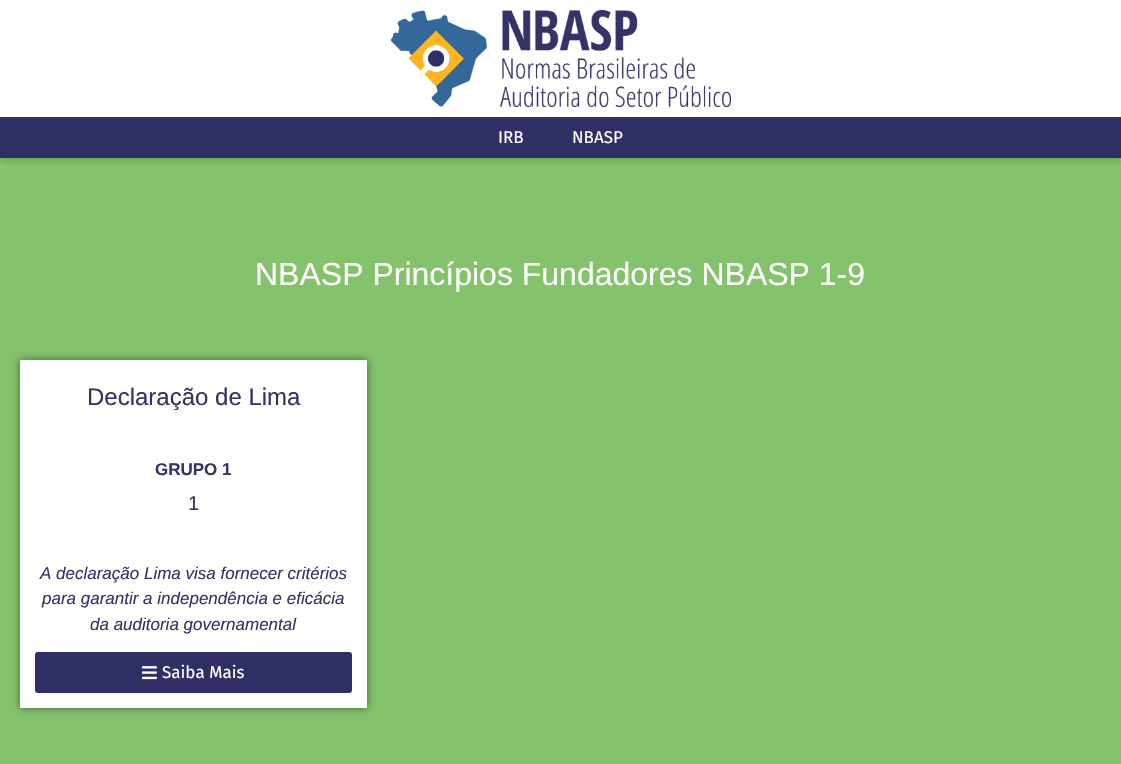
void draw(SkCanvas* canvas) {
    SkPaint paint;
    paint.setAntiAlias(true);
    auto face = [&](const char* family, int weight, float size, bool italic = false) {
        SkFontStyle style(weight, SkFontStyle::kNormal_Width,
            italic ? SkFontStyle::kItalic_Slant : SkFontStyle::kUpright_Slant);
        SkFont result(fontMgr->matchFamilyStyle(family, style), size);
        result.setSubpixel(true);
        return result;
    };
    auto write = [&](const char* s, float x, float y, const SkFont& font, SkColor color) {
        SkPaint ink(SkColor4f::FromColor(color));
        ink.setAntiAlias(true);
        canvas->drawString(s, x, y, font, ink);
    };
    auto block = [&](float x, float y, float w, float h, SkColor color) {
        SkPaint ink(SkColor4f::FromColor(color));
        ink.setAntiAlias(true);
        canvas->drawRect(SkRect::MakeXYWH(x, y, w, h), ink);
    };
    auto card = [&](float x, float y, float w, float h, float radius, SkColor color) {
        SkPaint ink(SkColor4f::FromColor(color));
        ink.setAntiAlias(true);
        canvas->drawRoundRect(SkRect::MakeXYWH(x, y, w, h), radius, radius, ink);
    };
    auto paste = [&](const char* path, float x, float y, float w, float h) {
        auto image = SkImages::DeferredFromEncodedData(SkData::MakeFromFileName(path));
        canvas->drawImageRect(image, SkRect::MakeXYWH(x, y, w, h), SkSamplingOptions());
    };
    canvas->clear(SK_ColorWHITE);
    block(0, 158, 1121, 606, SkColorSetRGB(132, 194, 108));
    canvas->save();
    canvas->clipRect(SkRect::MakeXYWH(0, 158, 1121, 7));
    paint.setColor(SkColorSetARGB(77, 0, 0, 0));
    paint.setMaskFilter(SkMaskFilter::MakeBlur(kNormal_SkBlurStyle, 5));
    canvas->drawRect(SkRect::MakeXYWH(0, 0, 1121, 158), paint);
    paint.setMaskFilter(nullptr);
    canvas->restore();
    paste("pic1.png", 391, 10, 340, 97);
    block(0, 117, 1121, 41, SkColorSetRGB(47, 47, 102));
    auto kFont1 = face("Fira Sans", 400, 17);
    write("IRB", 498, 143, kFont1, SK_ColorWHITE);
    write("NBASP", 572, 143, kFont1, SK_ColorWHITE);
    auto kFont2 = face("Liberation Sans", 400, 32);
    write("NBASP Princípios Fundadores NBASP 1-9", 255, 285, kFont2, SK_ColorWHITE);
    paint.setColor(SkColorSetARGB(128, 0, 0, 0));
    paint.setMaskFilter(SkMaskFilter::MakeBlur(kNormal_SkBlurStyle, 4));
    canvas->drawRect(SkRect::MakeXYWH(20, 360, 347, 348), paint);
    paint.setMaskFilter(nullptr);
    block(20, 360, 347, 348, SK_ColorWHITE);
    auto kFont3 = face("Liberation Sans", 400, 24);
    write("Declaração de Lima", 87, 405, kFont3, SkColorSetRGB(51, 51, 102));
    auto kFont4 = face("Liberation Sans", 700, 17);
    write("GRUPO 1", 155, 475, kFont4, SkColorSetRGB(51, 51, 102));
    auto kFont5 = face("Liberation Sans", 400, 20);
    write("1", 188, 510, kFont5, SkColorSetRGB(51, 51, 102));
    auto kFont6 = face("Liberation Sans", 400, 17, true);
    write("A declaração Lima visa fornecer critérios", 40, 579, kFont6, SkColorSetRGB(51, 51, 102));
    write("para garantir a independência e eficácia", 42, 604, kFont6, SkColorSetRGB(51, 51, 102));
    write("da auditoria governamental", 90, 630, kFont6, SkColorSetRGB(51, 51, 102));
    card(35, 652, 317, 41, 3, SkColorSetRGB(47, 47, 102));
    paste("pic2.png", 142, 666, 15, 14);
    write("Saiba Mais", 162, 678, kFont1, SK_ColorWHITE);
}
